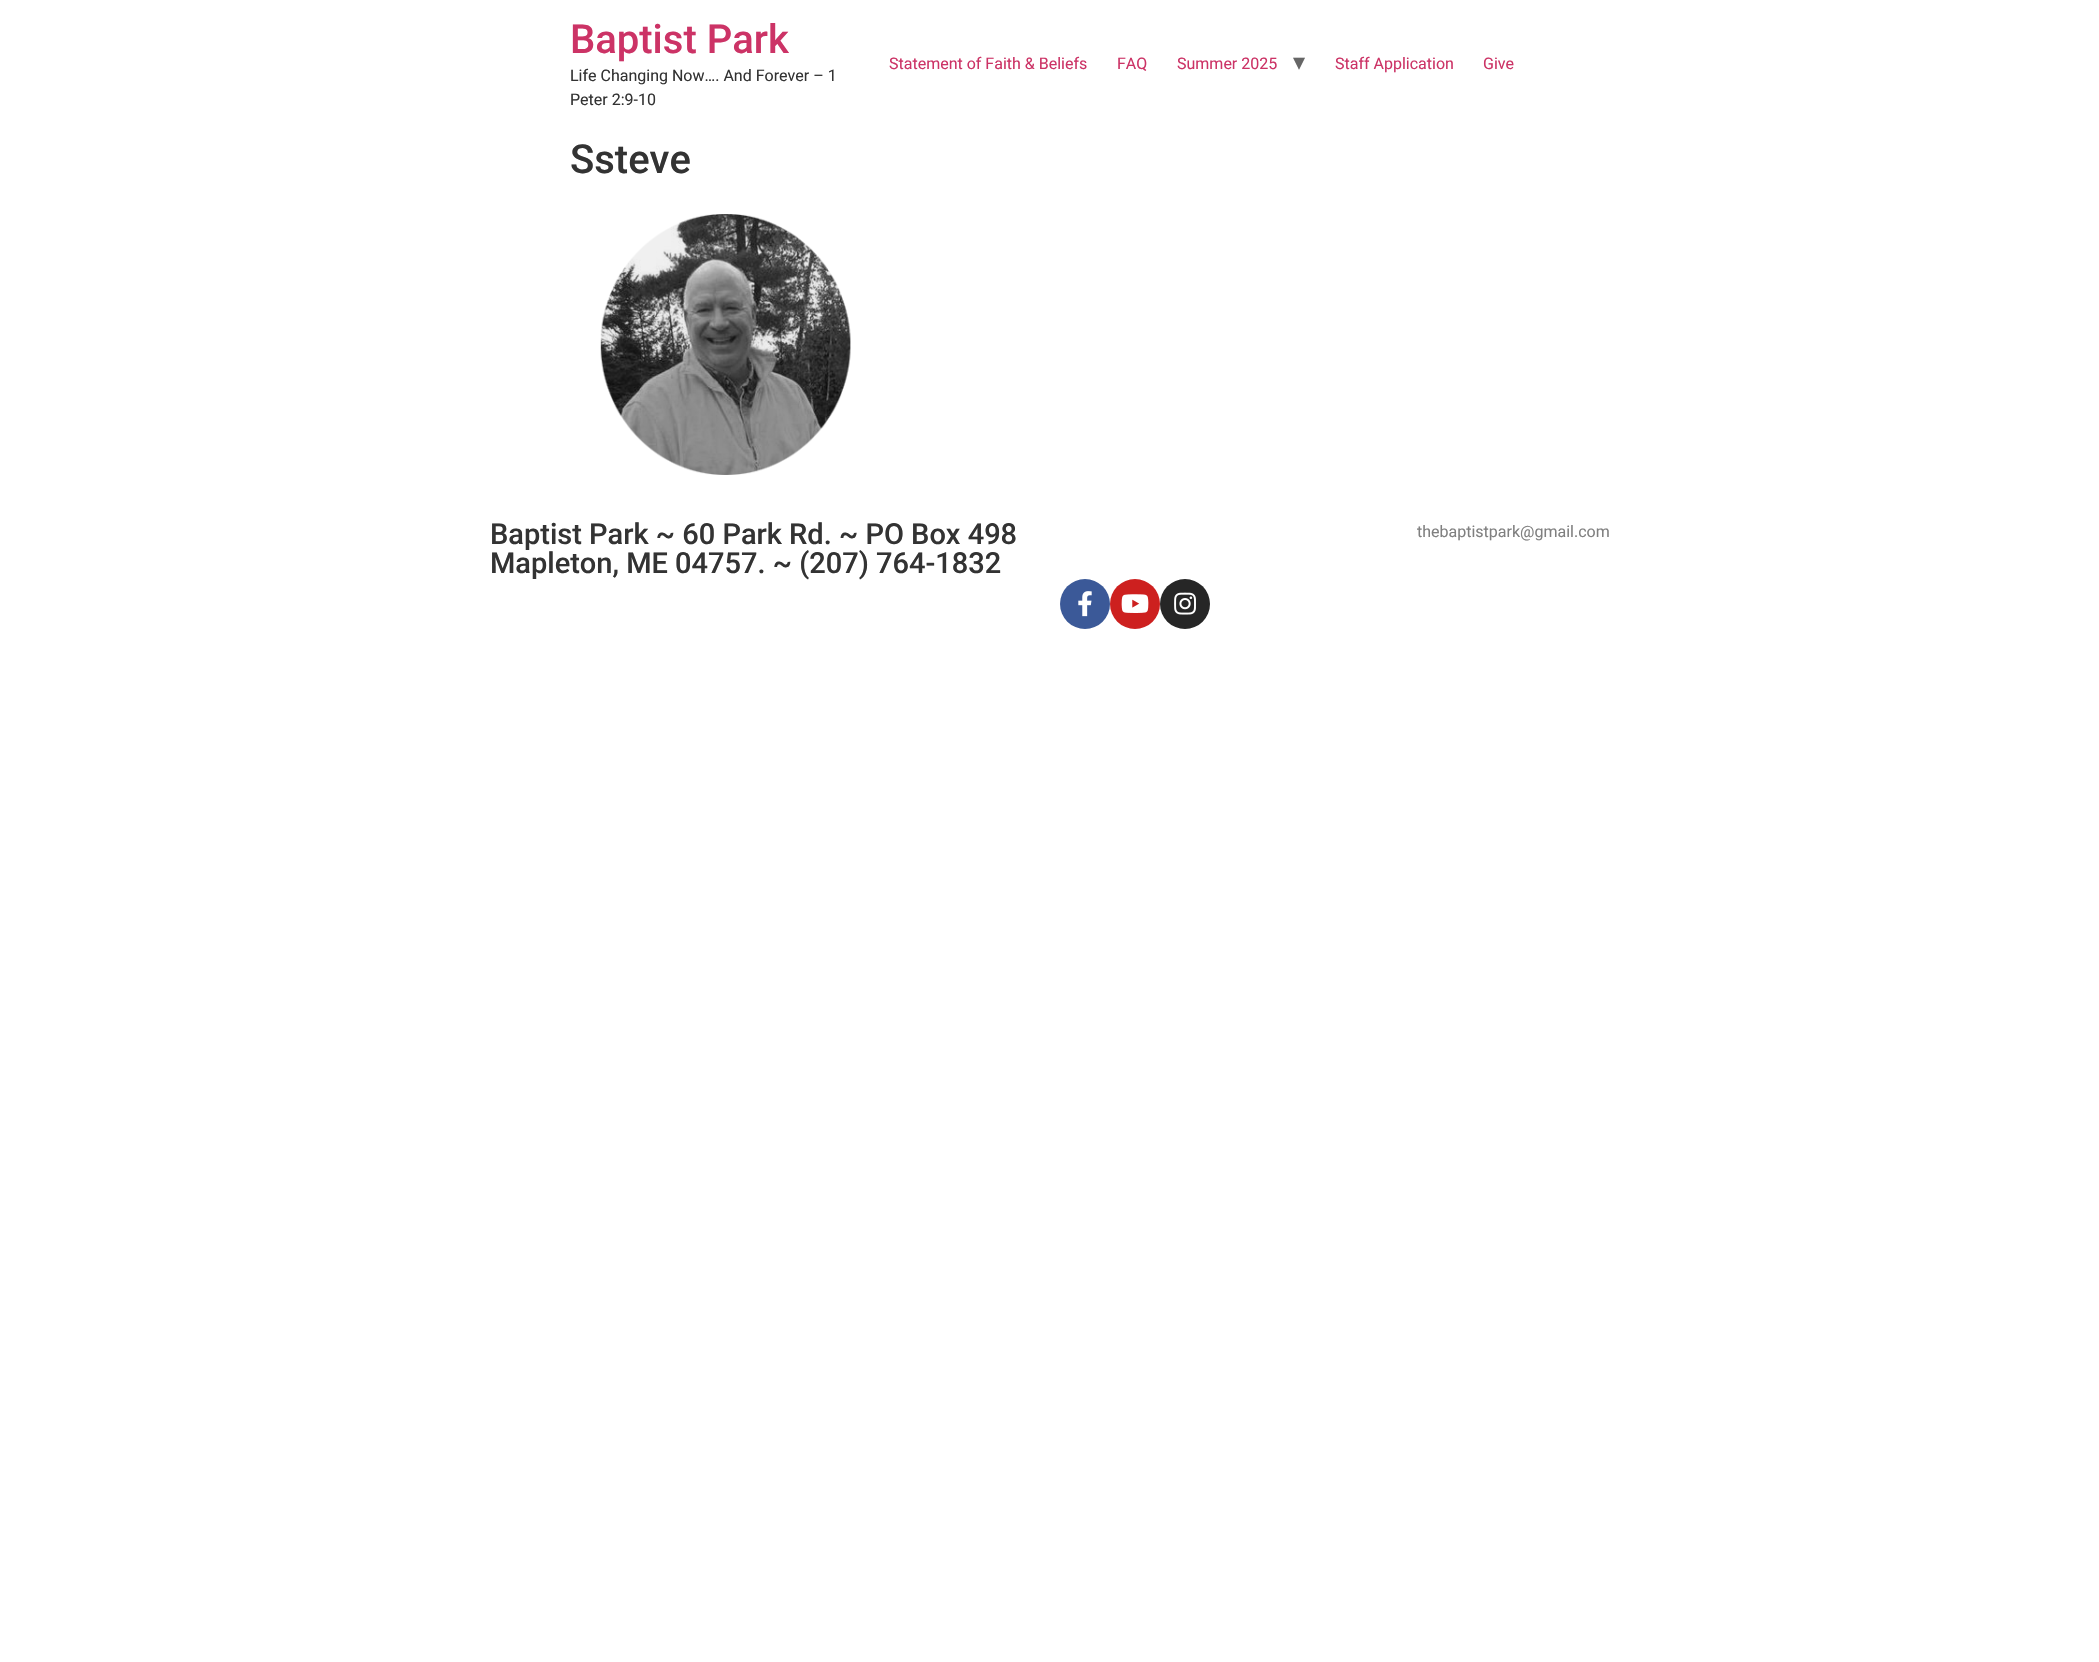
void draw(SkCanvas* canvas) {
    SkPaint paint;
    paint.setAntiAlias(true);
    auto face = [&](const char* family, int weight, float size, bool italic = false) {
        SkFontStyle style(weight, SkFontStyle::kNormal_Width,
            italic ? SkFontStyle::kItalic_Slant : SkFontStyle::kUpright_Slant);
        SkFont result(fontMgr->matchFamilyStyle(family, style), size);
        result.setSubpixel(true);
        return result;
    };
    auto write = [&](const char* s, float x, float y, const SkFont& font, SkColor color) {
        SkPaint ink(SkColor4f::FromColor(color));
        ink.setAntiAlias(true);
        canvas->drawString(s, x, y, font, ink);
    };
    auto paste = [&](const char* path, float x, float y, float w, float h) {
        auto image = SkImages::DeferredFromEncodedData(SkData::MakeFromFileName(path));
        canvas->drawImageRect(image, SkRect::MakeXYWH(x, y, w, h), SkSamplingOptions());
    };
    canvas->clear(SK_ColorWHITE);
    auto kFont1 = face("Roboto", 500, 40);
    write("Baptist Park", 570, 53, kFont1, SkColorSetRGB(204, 51, 102));
    auto kFont2 = face("Roboto", 400, 16);
    write("Life Changing Now…. And Forever – 1", 570, 81, kFont2, SkColorSetRGB(51, 51, 51));
    write("Peter 2:9-10", 570, 105, kFont2, SkColorSetRGB(51, 51, 51));
    write("Statement of Faith & Beliefs", 889, 69, kFont2, SkColorSetRGB(204, 51, 102));
    write("FAQ", 1117, 69, kFont2, SkColorSetRGB(204, 51, 102));
    write("Summer 2025", 1177, 69, kFont2, SkColorSetRGB(204, 51, 102));
    auto kFont3 = face("DejaVu Sans", 400, 24);
    write("▾", 1293, 70, kFont3, SkColorSetRGB(102, 102, 102));
    write("Staff Application", 1335, 69, kFont2, SkColorSetRGB(204, 51, 102));
    write("Give", 1483, 69, kFont2, SkColorSetRGB(204, 51, 102));
    write("Ssteve", 570, 173, kFont1, SkColorSetRGB(51, 51, 51));
    paste("pic1.png", 600, 214, 251, 261);
    auto kFont4 = face("Roboto", 500, 29);
    write("Baptist Park ~ 60 Park Rd. ~ PO Box 498", 490, 544, kFont4, SkColorSetRGB(51, 51, 51));
    write("Mapleton, ME 04757. ~ (207) 764-1832", 490, 573, kFont4, SkColorSetRGB(51, 51, 51));
    write("thebaptistpark@gmail.com", 1417, 537, kFont2, SkColorSetRGB(128, 128, 128));
    paint.setColor(SkColorSetRGB(59, 89, 152));
    canvas->drawCircle(1085, 604, 25, paint);
    paste("pic2.png", 1078, 591, 14, 26);
    paint.setColor(SkColorSetRGB(205, 32, 31));
    canvas->drawCircle(1135, 604, 25, paint);
    paste("pic3.png", 1121, 594, 28, 19);
    paint.setColor(SkColorSetRGB(38, 38, 38));
    canvas->drawCircle(1185, 604, 25, paint);
    paste("pic4.png", 1174, 592, 22, 23);
}
